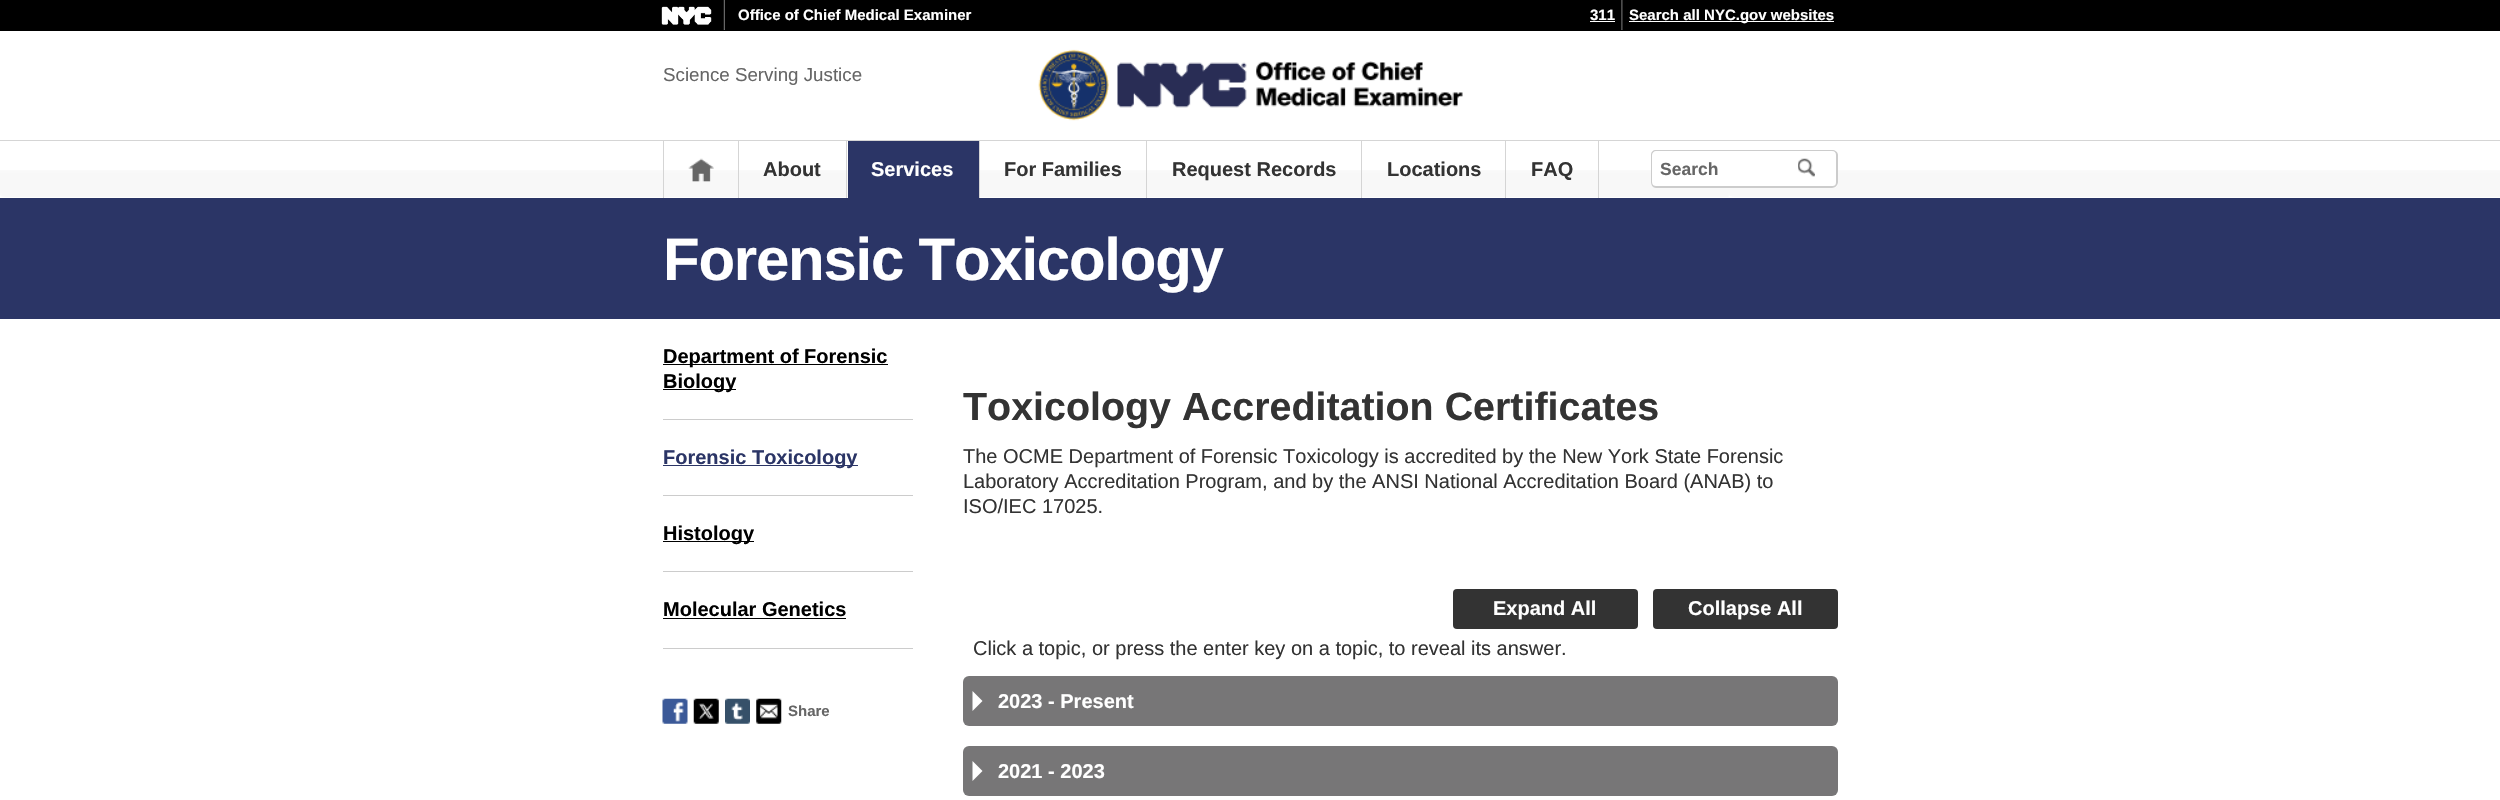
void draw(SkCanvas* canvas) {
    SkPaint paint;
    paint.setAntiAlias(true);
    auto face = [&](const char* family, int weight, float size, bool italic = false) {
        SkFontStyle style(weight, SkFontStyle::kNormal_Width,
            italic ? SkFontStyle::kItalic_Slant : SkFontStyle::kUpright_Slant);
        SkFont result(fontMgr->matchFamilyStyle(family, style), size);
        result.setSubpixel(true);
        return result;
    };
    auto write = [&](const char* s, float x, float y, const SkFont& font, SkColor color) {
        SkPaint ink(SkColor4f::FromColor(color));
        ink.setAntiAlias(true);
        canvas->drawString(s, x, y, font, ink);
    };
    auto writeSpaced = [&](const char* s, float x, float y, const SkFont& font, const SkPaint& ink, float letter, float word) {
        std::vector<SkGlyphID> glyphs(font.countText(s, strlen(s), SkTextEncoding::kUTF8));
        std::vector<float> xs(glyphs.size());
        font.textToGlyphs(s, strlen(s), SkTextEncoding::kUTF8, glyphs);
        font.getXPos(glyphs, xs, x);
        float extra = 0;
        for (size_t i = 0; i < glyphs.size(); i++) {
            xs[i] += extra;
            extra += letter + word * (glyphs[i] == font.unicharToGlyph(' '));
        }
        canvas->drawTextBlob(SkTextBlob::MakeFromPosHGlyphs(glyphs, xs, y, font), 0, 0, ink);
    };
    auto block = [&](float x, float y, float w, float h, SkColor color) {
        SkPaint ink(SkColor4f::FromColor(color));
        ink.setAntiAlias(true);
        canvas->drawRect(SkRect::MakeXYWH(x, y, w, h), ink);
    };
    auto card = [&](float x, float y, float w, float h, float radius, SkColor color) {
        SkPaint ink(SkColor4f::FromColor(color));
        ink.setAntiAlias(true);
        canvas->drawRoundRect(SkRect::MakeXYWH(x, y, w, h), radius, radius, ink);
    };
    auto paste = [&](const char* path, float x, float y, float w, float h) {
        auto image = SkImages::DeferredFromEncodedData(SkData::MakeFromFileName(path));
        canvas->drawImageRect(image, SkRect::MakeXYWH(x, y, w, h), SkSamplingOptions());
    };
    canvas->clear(SK_ColorWHITE);
    paste("pic1.png", 0, 170, 2500, 27);
    block(0, 0, 2500, 31, SK_ColorBLACK);
    paste("pic2.png", 661, 6, 51, 19);
    paste("pic3.png", 723, 0, 2, 30);
    auto kFont1 = face("Liberation Sans", 700, 15);
    write("Office of Chief Medical Examiner", 738, 20, kFont1, SK_ColorWHITE);
    write("311", 1590, 20, kFont1, SK_ColorWHITE);
    block(1590, 21, 25, 1, SK_ColorWHITE);
    paste("pic4.png", 1621, 0, 2, 30);
    block(1629, 21, 205, 1, SK_ColorWHITE);
    write("Search all NYC.gov websites", 1629, 20, kFont1, SK_ColorWHITE);
    block(0, 140, 2500, 1, SkColorSetRGB(213, 213, 213));
    auto kFont2 = face("Liberation Sans", 400, 18.75f);
    write("Science Serving Justice", 663, 81, kFont2, SkColorSetRGB(102, 102, 102));
    paste("pic5.png", 1038, 49, 425, 72);
    block(738, 141, 1, 57, SkColorSetRGB(213, 213, 213));
    block(663, 141, 1, 57, SkColorSetRGB(213, 213, 213));
    paste("pic6.png", 688, 158, 26, 24);
    block(846, 141, 1, 57, SkColorSetRGB(213, 213, 213));
    auto kFont3 = face("Liberation Sans", 700, 20);
    write("About", 763, 176, kFont3, SkColorSetRGB(51, 51, 51));
    block(848, 141, 131, 57, SkColorSetRGB(43, 53, 102));
    block(979, 141, 1, 57, SkColorSetRGB(213, 213, 213));
    write("Services", 871, 176, kFont3, SK_ColorWHITE);
    block(1146, 141, 1, 57, SkColorSetRGB(213, 213, 213));
    write("For Families", 1004, 176, kFont3, SkColorSetRGB(51, 51, 51));
    block(1361, 141, 1, 57, SkColorSetRGB(213, 213, 213));
    write("Request Records", 1172, 176, kFont3, SkColorSetRGB(51, 51, 51));
    block(1505, 141, 1, 57, SkColorSetRGB(213, 213, 213));
    write("Locations", 1387, 176, kFont3, SkColorSetRGB(51, 51, 51));
    block(1598, 141, 1, 57, SkColorSetRGB(213, 213, 213));
    write("FAQ", 1531, 176, kFont3, SkColorSetRGB(51, 51, 51));
    paint.setColor(SK_ColorWHITE);
    canvas->drawPath(SkPathBuilder().moveTo(1656, 150).lineTo(1798, 150).lineTo(1798, 188).lineTo(1656, 188).cubicTo(1653, 188, 1651, 186, 1651, 183).lineTo(1651, 155).cubicTo(1651, 152, 1653, 150, 1656, 150).close().detach(), paint);
    canvas->save();
    canvas->clipRect(SkRect::MakeXYWH(1641, 150, 157, 38));
    paint.setColor(SkColorSetRGB(204, 204, 204));
    canvas->drawPath(SkPathBuilder(SkPathFillType::kEvenOdd).moveTo(1656, 150).lineTo(1804, 150).lineTo(1804, 188).lineTo(1656, 188).cubicTo(1653, 188, 1651, 185, 1651, 182).lineTo(1651, 155).cubicTo(1651, 152, 1653, 150, 1656, 150).close().moveTo(1656, 151).lineTo(1804, 151).lineTo(1804, 186).lineTo(1656, 186).cubicTo(1654, 186, 1652, 185, 1652, 182).lineTo(1652, 155).cubicTo(1652, 153, 1654, 151, 1656, 151).close().detach(), paint);
    canvas->restore();
    auto kFont4 = face("Liberation Sans", 700, 17.5f);
    write("Search", 1660, 175, kFont4, SkColorSetRGB(102, 102, 102));
    paint.setColor(SK_ColorWHITE);
    canvas->drawPath(SkPathBuilder().moveTo(1798, 150).lineTo(1833, 150).cubicTo(1836, 150, 1838, 152, 1838, 155).lineTo(1838, 183).cubicTo(1838, 186, 1836, 188, 1833, 188).lineTo(1798, 188).close().detach(), paint);
    paste("pic7.png", 1798, 158, 17, 19);
    paint.setColor(SkColorSetRGB(204, 204, 204));
    canvas->drawPath(SkPathBuilder(SkPathFillType::kEvenOdd).moveTo(1798, 150).lineTo(1832, 150).cubicTo(1835, 150, 1838, 152, 1838, 155).lineTo(1838, 182).cubicTo(1838, 185, 1835, 188, 1832, 188).lineTo(1798, 188).close().moveTo(1798, 151).lineTo(1832, 151).cubicTo(1835, 151, 1836, 153, 1836, 155).lineTo(1836, 182).cubicTo(1836, 185, 1835, 186, 1832, 186).lineTo(1798, 186).close().detach(), paint);
    block(0, 198, 2500, 121, SkColorSetRGB(43, 53, 102));
    auto kFont5 = face("Liberation Sans", 700, 60);
    paint.setColor(SK_ColorWHITE);
    writeSpaced("Forensic Toxicology", 663, 280, kFont5, paint, -1.25f, 0);
    block(663, 419, 250, 1, SkColorSetRGB(204, 204, 204));
    block(663, 364, 225, 1, SK_ColorBLACK);
    write("Department of Forensic", 663, 363, kFont3, SK_ColorBLACK);
    block(663, 389, 73, 1, SK_ColorBLACK);
    write("Biology", 663, 388, kFont3, SK_ColorBLACK);
    block(663, 495, 250, 1, SkColorSetRGB(204, 204, 204));
    block(663, 465, 195, 1, SkColorSetRGB(43, 53, 102));
    write("Forensic Toxicology", 663, 464, kFont3, SkColorSetRGB(43, 53, 102));
    block(663, 571, 250, 1, SkColorSetRGB(204, 204, 204));
    block(663, 541, 91, 1, SK_ColorBLACK);
    write("Histology", 663, 540, kFont3, SK_ColorBLACK);
    block(663, 648, 250, 1, SkColorSetRGB(204, 204, 204));
    write("Molecular Genetics", 663, 616, kFont3, SK_ColorBLACK);
    block(663, 618, 183, 1, SK_ColorBLACK);
    paste("pic8.png", 662, 698, 26, 26);
    paste("pic9.png", 693, 698, 26, 26);
    paste("pic10.png", 725, 698, 25, 26);
    paste("pic11.png", 756, 698, 26, 26);
    write("Share", 788, 716, kFont1, SkColorSetRGB(102, 102, 102));
    auto kFont6 = face("Liberation Sans", 700, 39.4f);
    write("Toxicology Accreditation Certificates", 963, 420, kFont6, SkColorSetRGB(51, 51, 51));
    auto kFont7 = face("Liberation Sans", 400, 20);
    write("The OCME Department of Forensic Toxicology is accredited by the New York State Forensic", 963, 463, kFont7, SkColorSetRGB(51, 51, 51));
    write("Laboratory Accreditation Program, and by the ANSI National Accreditation Board (ANAB) to", 963, 488, kFont7, SkColorSetRGB(51, 51, 51));
    write("ISO/IEC 17025.", 963, 513, kFont7, SkColorSetRGB(51, 51, 51));
    card(1453, 589, 185, 40, 4, SkColorSetRGB(51, 51, 51));
    write("Expand All", 1493, 615, kFont3, SK_ColorWHITE);
    card(1653, 589, 185, 40, 4, SkColorSetRGB(51, 51, 51));
    write("Collapse All", 1688, 615, kFont3, SK_ColorWHITE);
    write("Click a topic, or press the enter key on a topic, to reveal its answer.", 973, 655, kFont7, SkColorSetRGB(51, 51, 51));
    card(963, 676, 875, 50, 6, SkColorSetRGB(119, 118, 119));
    canvas->drawPath(SkPathBuilder().moveTo(972.5f, 711).lineTo(972.5f, 691).lineTo(982.5f, 701).close().detach(), paint);
    write("2023 - Present", 998, 708, kFont3, SK_ColorWHITE);
    card(963, 746, 875, 50, 6, SkColorSetRGB(119, 118, 119));
    canvas->drawPath(SkPathBuilder().moveTo(972.5f, 781).lineTo(972.5f, 761).lineTo(982.5f, 771).close().detach(), paint);
    write("2021 - 2023", 998, 778, kFont3, SK_ColorWHITE);
}
